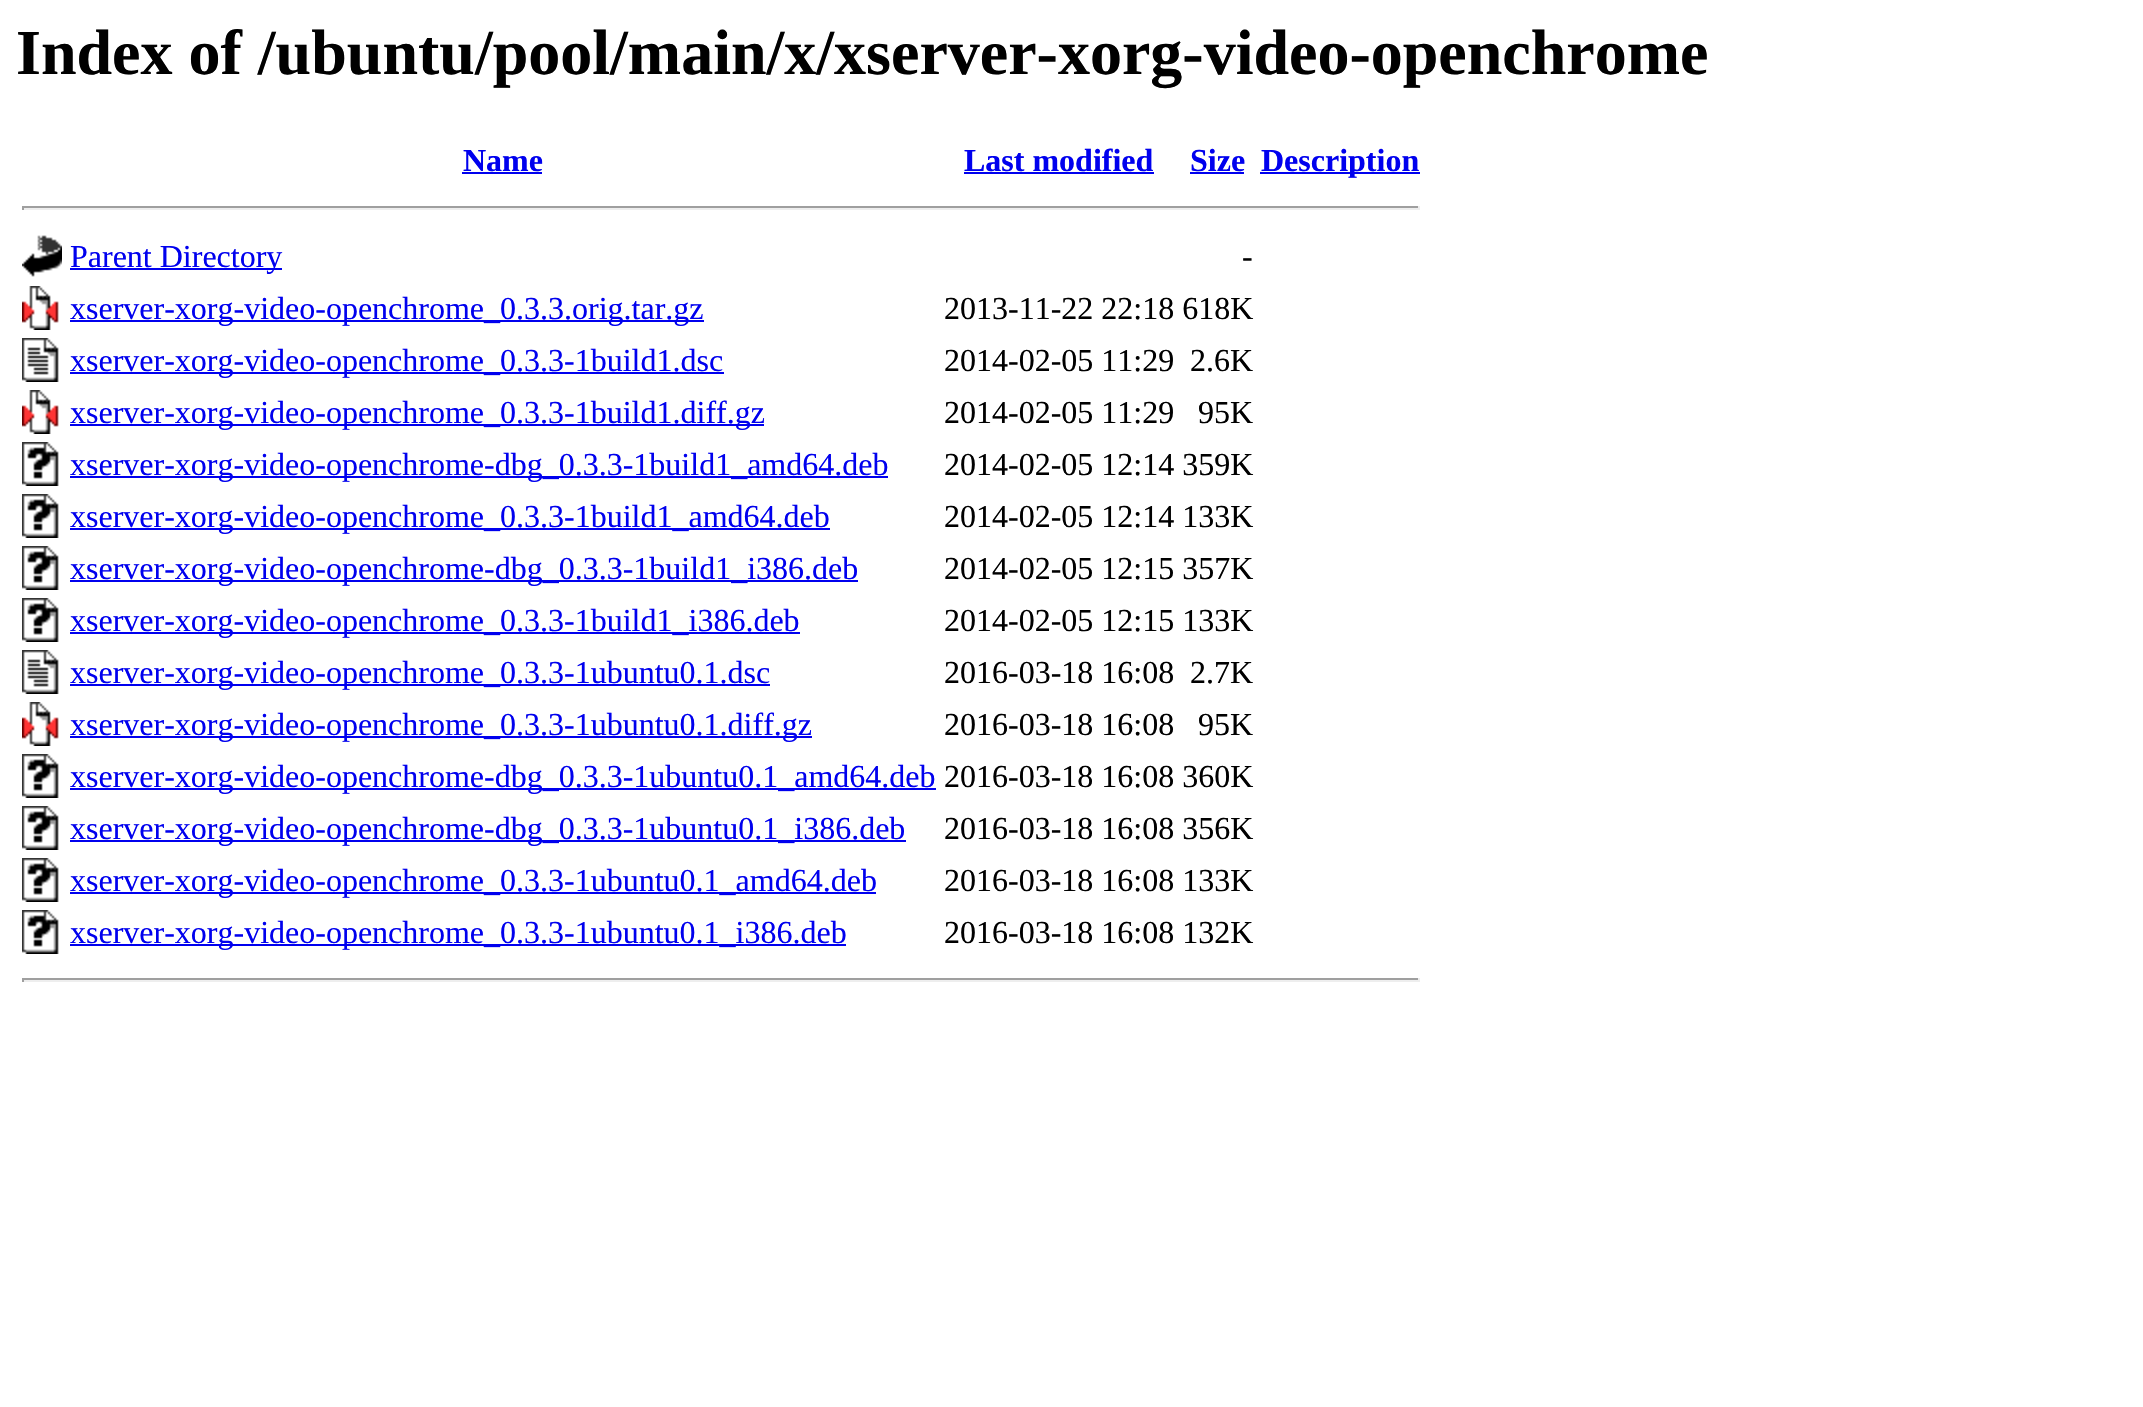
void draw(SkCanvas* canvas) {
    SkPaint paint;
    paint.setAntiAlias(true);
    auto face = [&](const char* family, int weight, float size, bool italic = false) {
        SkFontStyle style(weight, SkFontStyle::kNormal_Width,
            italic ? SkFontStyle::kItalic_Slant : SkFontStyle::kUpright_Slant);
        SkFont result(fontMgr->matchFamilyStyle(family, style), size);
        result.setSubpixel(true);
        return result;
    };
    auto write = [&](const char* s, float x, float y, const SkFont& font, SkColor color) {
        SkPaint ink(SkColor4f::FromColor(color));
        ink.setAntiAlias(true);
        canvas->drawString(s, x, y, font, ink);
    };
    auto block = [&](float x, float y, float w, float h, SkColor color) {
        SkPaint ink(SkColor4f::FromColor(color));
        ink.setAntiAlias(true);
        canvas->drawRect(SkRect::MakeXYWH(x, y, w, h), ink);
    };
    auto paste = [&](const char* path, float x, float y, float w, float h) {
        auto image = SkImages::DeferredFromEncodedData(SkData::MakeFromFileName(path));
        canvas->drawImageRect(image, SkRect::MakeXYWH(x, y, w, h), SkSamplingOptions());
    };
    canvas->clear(SK_ColorWHITE);
    auto kFont1 = face("Liberation Serif", 700, 64);
    write("Index of /ubuntu/pool/main/x/xserver-xorg-video-openchrome", 16, 74, kFont1, SK_ColorBLACK);
    auto kFont2 = face("Liberation Serif", 700, 32);
    write("Name", 463, 171, kFont2, SkColorSetRGB(0, 0, 238));
    block(462, 172, 80, 2, SkColorSetRGB(0, 0, 238));
    write("Last modified", 964, 171, kFont2, SkColorSetRGB(0, 0, 238));
    block(964, 172, 190, 2, SkColorSetRGB(0, 0, 238));
    write("Size", 1190, 171, kFont2, SkColorSetRGB(0, 0, 238));
    block(1190, 172, 54, 2, SkColorSetRGB(0, 0, 238));
    block(1260, 172, 160, 2, SkColorSetRGB(0, 0, 238));
    write("Description", 1261, 171, kFont2, SkColorSetRGB(0, 0, 238));
    block(22, 206, 1398, 2, SkColorSetRGB(159, 159, 159));
    block(1418, 206, 2, 4, SkColorSetRGB(238, 238, 238));
    block(22, 208, 1398, 2, SkColorSetRGB(238, 238, 238));
    block(22, 206, 2, 4, SkColorSetRGB(159, 159, 159));
    paste("pic1.png", 22, 235, 40, 42);
    block(70, 268, 212, 2, SkColorSetRGB(0, 0, 238));
    auto kFont3 = face("Liberation Serif", 400, 32);
    write("Parent Directory", 70, 267, kFont3, SkColorSetRGB(0, 0, 238));
    write("-", 1242, 267, kFont3, SK_ColorBLACK);
    paste("pic2.png", 22, 286, 37, 44);
    block(70, 320, 634, 2, SkColorSetRGB(0, 0, 238));
    write("xserver-xorg-video-openchrome_0.3.3.orig.tar.gz", 70, 319, kFont3, SkColorSetRGB(0, 0, 238));
    write("2013-11-22 22:18 618K", 944, 319, kFont3, SK_ColorBLACK);
    paste("pic3.png", 22, 338, 37, 44);
    block(70, 372, 654, 2, SkColorSetRGB(0, 0, 238));
    write("xserver-xorg-video-openchrome_0.3.3-1build1.dsc", 70, 371, kFont3, SkColorSetRGB(0, 0, 238));
    write("2014-02-05 11:29", 944, 371, kFont3, SK_ColorBLACK);
    write("2.6K", 1190, 371, kFont3, SK_ColorBLACK);
    paste("pic2.png", 22, 390, 37, 44);
    block(70, 424, 694, 2, SkColorSetRGB(0, 0, 238));
    write("xserver-xorg-video-openchrome_0.3.3-1build1.diff.gz", 70, 423, kFont3, SkColorSetRGB(0, 0, 238));
    write("2014-02-05 11:29", 944, 423, kFont3, SK_ColorBLACK);
    write("95K", 1198, 423, kFont3, SK_ColorBLACK);
    paste("pic4.png", 22, 442, 37, 44);
    block(70, 476, 818, 2, SkColorSetRGB(0, 0, 238));
    write("xserver-xorg-video-openchrome-dbg_0.3.3-1build1_amd64.deb", 70, 475, kFont3, SkColorSetRGB(0, 0, 238));
    write("2014-02-05 12:14 359K", 944, 475, kFont3, SK_ColorBLACK);
    paste("pic4.png", 22, 494, 37, 44);
    block(70, 528, 760, 2, SkColorSetRGB(0, 0, 238));
    write("xserver-xorg-video-openchrome_0.3.3-1build1_amd64.deb", 70, 527, kFont3, SkColorSetRGB(0, 0, 238));
    write("2014-02-05 12:14 133K", 944, 527, kFont3, SK_ColorBLACK);
    paste("pic4.png", 22, 546, 37, 44);
    block(70, 580, 788, 2, SkColorSetRGB(0, 0, 238));
    write("xserver-xorg-video-openchrome-dbg_0.3.3-1build1_i386.deb", 70, 579, kFont3, SkColorSetRGB(0, 0, 238));
    write("2014-02-05 12:15 357K", 944, 579, kFont3, SK_ColorBLACK);
    paste("pic4.png", 22, 598, 37, 44);
    block(70, 632, 730, 2, SkColorSetRGB(0, 0, 238));
    write("xserver-xorg-video-openchrome_0.3.3-1build1_i386.deb", 70, 631, kFont3, SkColorSetRGB(0, 0, 238));
    write("2014-02-05 12:15 133K", 944, 631, kFont3, SK_ColorBLACK);
    paste("pic3.png", 22, 650, 37, 44);
    block(70, 684, 700, 2, SkColorSetRGB(0, 0, 238));
    write("xserver-xorg-video-openchrome_0.3.3-1ubuntu0.1.dsc", 70, 683, kFont3, SkColorSetRGB(0, 0, 238));
    write("2016-03-18 16:08", 944, 683, kFont3, SK_ColorBLACK);
    write("2.7K", 1190, 683, kFont3, SK_ColorBLACK);
    paste("pic2.png", 22, 702, 37, 44);
    block(70, 736, 742, 2, SkColorSetRGB(0, 0, 238));
    write("xserver-xorg-video-openchrome_0.3.3-1ubuntu0.1.diff.gz", 70, 735, kFont3, SkColorSetRGB(0, 0, 238));
    write("2016-03-18 16:08", 944, 735, kFont3, SK_ColorBLACK);
    write("95K", 1198, 735, kFont3, SK_ColorBLACK);
    paste("pic4.png", 22, 754, 37, 44);
    block(70, 788, 866, 2, SkColorSetRGB(0, 0, 238));
    write("xserver-xorg-video-openchrome-dbg_0.3.3-1ubuntu0.1_amd64.deb", 70, 787, kFont3, SkColorSetRGB(0, 0, 238));
    write("2016-03-18 16:08 360K", 944, 787, kFont3, SK_ColorBLACK);
    paste("pic4.png", 22, 806, 37, 44);
    block(70, 840, 836, 2, SkColorSetRGB(0, 0, 238));
    write("xserver-xorg-video-openchrome-dbg_0.3.3-1ubuntu0.1_i386.deb", 70, 839, kFont3, SkColorSetRGB(0, 0, 238));
    write("2016-03-18 16:08 356K", 944, 839, kFont3, SK_ColorBLACK);
    paste("pic4.png", 22, 858, 37, 44);
    block(70, 892, 806, 2, SkColorSetRGB(0, 0, 238));
    write("xserver-xorg-video-openchrome_0.3.3-1ubuntu0.1_amd64.deb", 70, 891, kFont3, SkColorSetRGB(0, 0, 238));
    write("2016-03-18 16:08 133K", 944, 891, kFont3, SK_ColorBLACK);
    paste("pic4.png", 22, 910, 37, 44);
    block(70, 944, 776, 2, SkColorSetRGB(0, 0, 238));
    write("xserver-xorg-video-openchrome_0.3.3-1ubuntu0.1_i386.deb", 70, 943, kFont3, SkColorSetRGB(0, 0, 238));
    write("2016-03-18 16:08 132K", 944, 943, kFont3, SK_ColorBLACK);
    block(22, 978, 1398, 2, SkColorSetRGB(159, 159, 159));
    block(1418, 978, 2, 4, SkColorSetRGB(238, 238, 238));
    block(22, 980, 1398, 2, SkColorSetRGB(238, 238, 238));
    block(22, 978, 2, 4, SkColorSetRGB(159, 159, 159));
}
